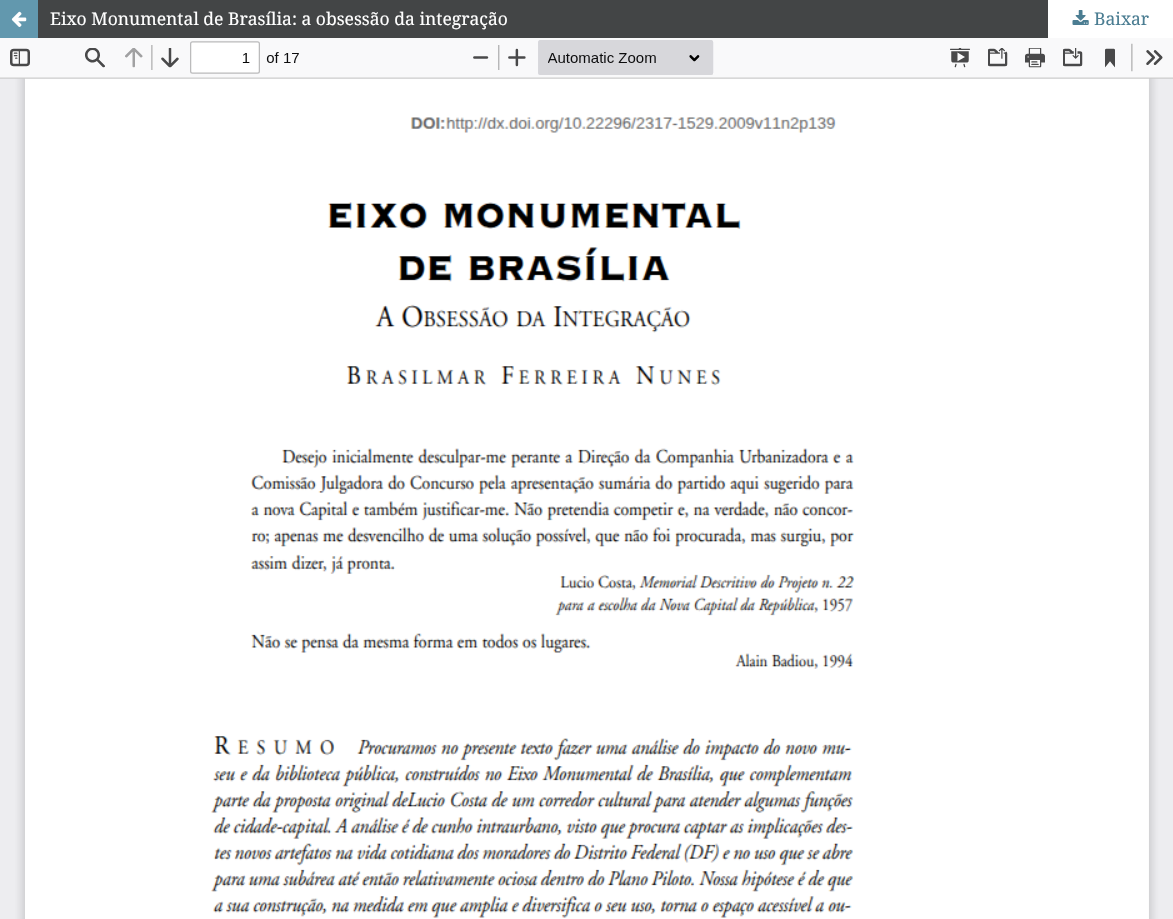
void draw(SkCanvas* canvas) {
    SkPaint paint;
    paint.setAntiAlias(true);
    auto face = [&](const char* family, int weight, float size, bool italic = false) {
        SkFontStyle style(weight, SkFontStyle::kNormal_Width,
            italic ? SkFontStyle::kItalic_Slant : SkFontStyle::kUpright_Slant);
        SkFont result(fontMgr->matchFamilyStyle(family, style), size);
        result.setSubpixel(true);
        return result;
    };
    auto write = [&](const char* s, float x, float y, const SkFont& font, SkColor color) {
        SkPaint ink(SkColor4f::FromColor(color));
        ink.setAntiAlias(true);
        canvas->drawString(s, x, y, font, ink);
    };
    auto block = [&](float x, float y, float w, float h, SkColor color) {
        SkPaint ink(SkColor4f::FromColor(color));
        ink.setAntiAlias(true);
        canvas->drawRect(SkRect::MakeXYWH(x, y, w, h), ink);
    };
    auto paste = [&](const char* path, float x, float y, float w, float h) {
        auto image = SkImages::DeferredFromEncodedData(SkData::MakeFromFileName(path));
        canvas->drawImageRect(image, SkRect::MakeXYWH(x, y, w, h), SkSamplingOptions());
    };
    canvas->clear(SK_ColorWHITE);
    block(38, 0, 1010, 38, SkColorSetRGB(67, 69, 70));
    block(0, 0, 38, 38, SkColorSetRGB(98, 152, 174));
    paste("pic1.png", 11, 11, 16, 16);
    auto kFont1 = face("Noto Serif", 400, 17.5f);
    write("Eixo Monumental de Brasília: a obsessão da integração", 50, 25, kFont1, SK_ColorWHITE);
    paste("pic2.png", 1072, 10, 17, 15);
    write("Baixar", 1094, 25, kFont1, SkColorSetRGB(75, 125, 146));
    paste("pic3.png", 0, 38, 1173, 881);
}
